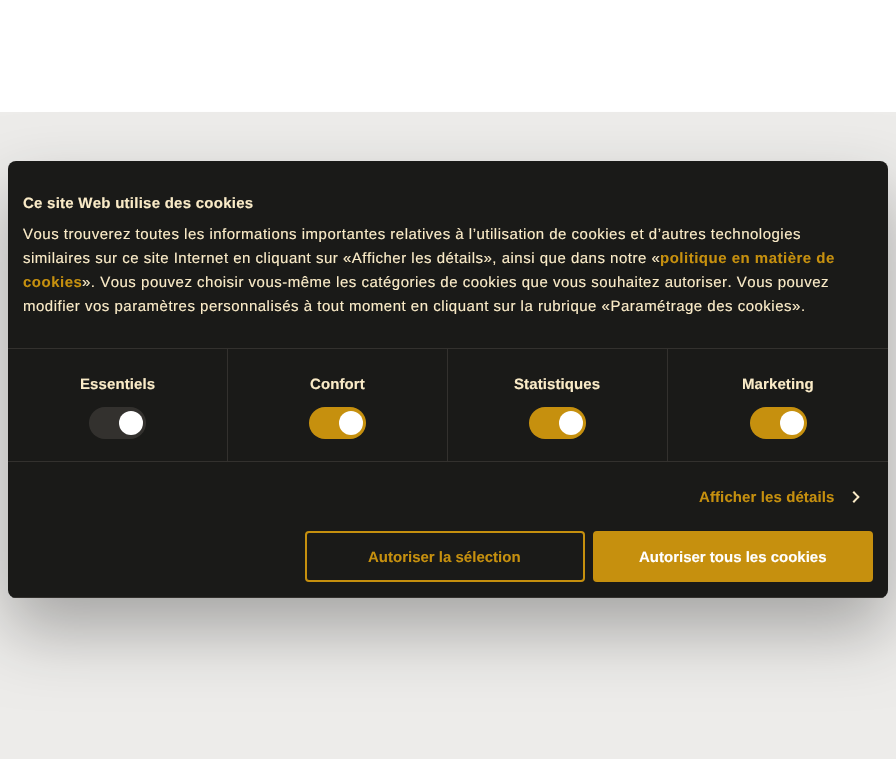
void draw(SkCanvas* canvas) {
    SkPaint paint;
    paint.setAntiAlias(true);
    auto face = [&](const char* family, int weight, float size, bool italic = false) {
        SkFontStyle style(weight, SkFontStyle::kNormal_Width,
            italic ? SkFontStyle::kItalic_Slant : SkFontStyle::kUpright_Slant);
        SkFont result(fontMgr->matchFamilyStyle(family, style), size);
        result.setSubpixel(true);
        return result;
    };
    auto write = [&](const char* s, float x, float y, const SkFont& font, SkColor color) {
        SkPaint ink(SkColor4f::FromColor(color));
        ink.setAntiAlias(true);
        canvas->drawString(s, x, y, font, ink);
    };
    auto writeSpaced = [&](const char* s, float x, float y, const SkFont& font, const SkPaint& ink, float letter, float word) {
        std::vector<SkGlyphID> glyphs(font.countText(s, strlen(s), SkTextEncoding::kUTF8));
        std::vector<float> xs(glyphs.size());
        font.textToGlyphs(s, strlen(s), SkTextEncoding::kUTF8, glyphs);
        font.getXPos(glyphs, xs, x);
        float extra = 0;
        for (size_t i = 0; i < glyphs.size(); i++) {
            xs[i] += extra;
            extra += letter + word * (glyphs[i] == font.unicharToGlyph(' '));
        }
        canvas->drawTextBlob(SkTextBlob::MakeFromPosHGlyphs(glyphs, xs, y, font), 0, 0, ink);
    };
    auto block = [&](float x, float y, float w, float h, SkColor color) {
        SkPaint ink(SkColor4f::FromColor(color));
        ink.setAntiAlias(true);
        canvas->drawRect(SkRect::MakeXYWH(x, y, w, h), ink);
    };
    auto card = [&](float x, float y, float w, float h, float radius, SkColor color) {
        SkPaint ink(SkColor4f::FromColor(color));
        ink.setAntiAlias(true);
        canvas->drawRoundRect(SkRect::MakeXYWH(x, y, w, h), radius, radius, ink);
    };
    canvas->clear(SK_ColorWHITE);
    block(0, 112, 896, 647, SkColorSetRGB(237, 236, 234));
    paint.setColor(SkColorSetARGB(77, 0, 0, 0));
    paint.setMaskFilter(SkMaskFilter::MakeBlur(kNormal_SkBlurStyle, 34));
    canvas->drawRoundRect(SkRect::MakeXYWH(8, 193, 880, 437), 8, 8, paint);
    paint.setMaskFilter(nullptr);
    card(8, 161, 880, 437, 8, SkColorSetRGB(26, 26, 24));
    block(8, 348, 880, 1, SkColorSetRGB(51, 49, 46));
    auto kFont1 = face("Liberation Sans", 700, 15);
    paint.setColor(SkColorSetRGB(250, 235, 199));
    writeSpaced("Ce site Web utilise des cookies", 23, 208, kFont1, paint, 0.25f, 0);
    auto kFont2 = face("Liberation Sans", 400, 15);
    writeSpaced("Vous trouverez toutes les informations importantes relatives à l’utilisation de cookies et d’autres technologies", 23, 239, kFont2, paint, 0.5f, 0);
    writeSpaced("similaires sur ce site Internet en cliquant sur «Afficher les détails», ainsi que dans notre «", 23, 263, kFont2, paint, 0.5f, 0);
    paint.setColor(SkColorSetRGB(198, 144, 14));
    writeSpaced("politique en matière de", 660, 263, kFont1, paint, 0.5f, 0);
    writeSpaced("cookies", 23, 287, kFont1, paint, 0.5f, 0);
    paint.setColor(SkColorSetRGB(250, 235, 199));
    writeSpaced("». Vous pouvez choisir vous-même les catégories de cookies que vous souhaitez autoriser. Vous pouvez", 82, 287, kFont2, paint, 0.5f, 0);
    writeSpaced("modifier vos paramètres personnalisés à tout moment en cliquant sur la rubrique «Paramétrage des cookies».", 23, 311, kFont2, paint, 0.5f, 0);
    block(8, 461, 880, 1, SkColorSetRGB(51, 49, 46));
    block(227, 349, 1, 112, SkColorSetRGB(51, 49, 46));
    writeSpaced("Essentiels", 80, 389, kFont1, paint, 0.1f, 0);
    card(89, 407, 57, 32, 16, SkColorSetRGB(51, 49, 46));
    paint.setColor(SK_ColorWHITE);
    canvas->drawCircle(131, 423, 12, paint);
    block(447, 349, 1, 112, SkColorSetRGB(51, 49, 46));
    paint.setColor(SkColorSetRGB(250, 235, 199));
    writeSpaced("Confort", 310, 389, kFont1, paint, 0.1f, 0);
    card(309, 407, 57, 32, 16, SkColorSetRGB(198, 144, 14));
    paint.setColor(SK_ColorWHITE);
    canvas->drawCircle(351, 423, 12, paint);
    block(667, 349, 1, 112, SkColorSetRGB(51, 49, 46));
    paint.setColor(SkColorSetRGB(250, 235, 199));
    writeSpaced("Statistiques", 514, 389, kFont1, paint, 0.1f, 0);
    card(529, 407, 57, 32, 16, SkColorSetRGB(198, 144, 14));
    paint.setColor(SK_ColorWHITE);
    canvas->drawCircle(571, 423, 12, paint);
    paint.setColor(SkColorSetRGB(250, 235, 199));
    writeSpaced("Marketing", 742, 389, kFont1, paint, 0.1f, 0);
    card(750, 407, 57, 32, 16, SkColorSetRGB(198, 144, 14));
    paint.setColor(SK_ColorWHITE);
    canvas->drawCircle(792, 423, 12, paint);
    paint.setColor(SkColorSetRGB(198, 144, 14));
    writeSpaced("Afficher les détails", 699, 502, kFont1, paint, 0.1f, 0);
    paint.setColor(SkColorSetRGB(250, 235, 199));
    canvas->drawPath(SkPathBuilder().moveTo(854, 491).lineTo(859.5f, 497).lineTo(858.5f, 498.5f).lineTo(852.5f, 492.5f).close().detach(), paint);
    canvas->drawPath(SkPathBuilder().moveTo(858.5f, 495.5f).lineTo(859.5f, 497).lineTo(854, 503).lineTo(852.5f, 501.5f).close().detach(), paint);
    canvas->save();
    canvas->clipPath(SkPathBuilder().moveTo(16, 161).lineTo(880, 161).cubicTo(884.5f, 161, 888, 164.5f, 888, 169).lineTo(888, 590).cubicTo(888, 594.5f, 884.5f, 598, 880, 598).lineTo(16, 598).cubicTo(11.5f, 598, 8, 594.5f, 8, 590).lineTo(8, 169).cubicTo(8, 164.5f, 11.5f, 161, 16, 161).close().detach(), true);
    block(8, 597, 880, 1, SkColorSetRGB(51, 49, 46));
    canvas->restore();
    paint.setStyle(SkPaint::kStroke_Style);
    paint.setStrokeWidth(2);
    paint.setColor(SkColorSetRGB(198, 144, 14));
    canvas->drawRoundRect(SkRect::MakeXYWH(306, 532, 278, 49), 3, 3, paint);
    write("Autoriser la sélection", 368, 562, kFont1, SkColorSetRGB(198, 144, 14));
    paint.setStyle(SkPaint::kFill_Style);
    canvas->drawRoundRect(SkRect::MakeXYWH(594, 532, 278, 49), 3, 3, paint);
    paint.setStyle(SkPaint::kStroke_Style);
    canvas->drawRoundRect(SkRect::MakeXYWH(594, 532, 278, 49), 3, 3, paint);
    write("Autoriser tous les cookies", 639, 562, kFont1, SK_ColorWHITE);
}
